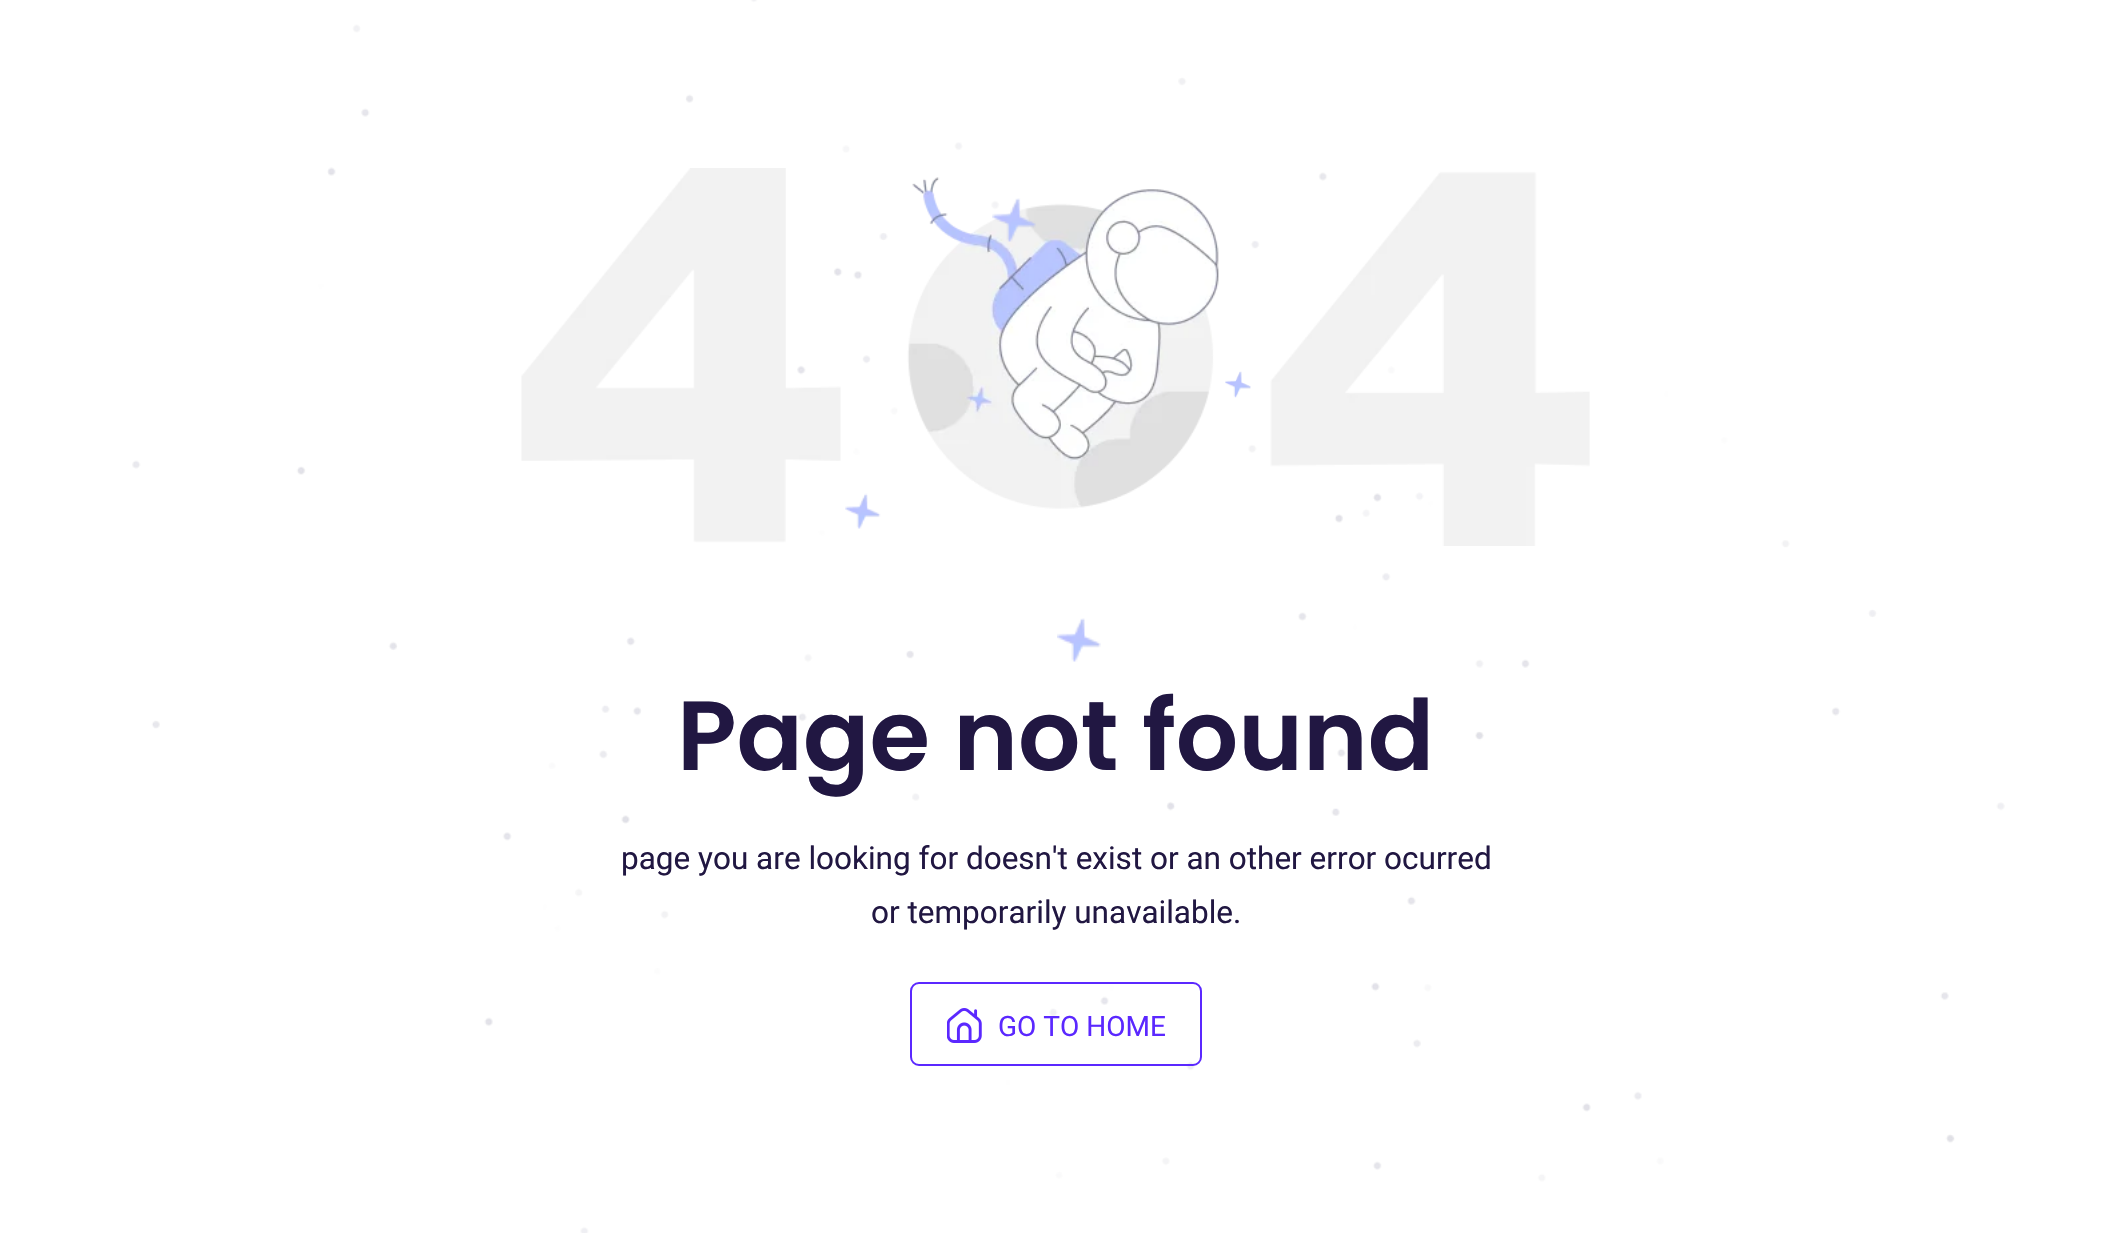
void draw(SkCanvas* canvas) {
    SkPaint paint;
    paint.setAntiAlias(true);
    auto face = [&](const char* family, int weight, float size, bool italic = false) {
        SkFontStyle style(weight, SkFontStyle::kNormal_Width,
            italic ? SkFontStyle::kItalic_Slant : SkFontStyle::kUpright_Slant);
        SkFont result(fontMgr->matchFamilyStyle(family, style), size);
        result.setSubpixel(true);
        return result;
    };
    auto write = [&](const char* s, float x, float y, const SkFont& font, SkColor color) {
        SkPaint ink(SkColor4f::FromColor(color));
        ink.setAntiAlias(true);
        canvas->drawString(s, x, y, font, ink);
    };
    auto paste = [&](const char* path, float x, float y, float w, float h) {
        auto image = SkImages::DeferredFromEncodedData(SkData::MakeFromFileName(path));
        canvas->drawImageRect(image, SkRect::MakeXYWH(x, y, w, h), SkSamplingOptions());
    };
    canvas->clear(SK_ColorWHITE);
    paste("pic1.png", 132, 0, 1873, 1233);
    paste("pic2.png", 521, 168, 1069, 378);
    paste("pic3.png", 992, 198, 44, 44);
    paste("pic4.png", 1225, 371, 26, 27);
    paste("pic5.png", 845, 493, 36, 36);
    paste("pic6.png", 1057, 618, 44, 44);
    auto kFont1 = face("Poppins", 600, 98);
    write("Page not found", 677, 770, kFont1, SkColorSetRGB(33, 23, 66));
    auto kFont2 = face("Roboto", 400, 31.5f);
    write("page you are looking for doesn't exist or an other error ocurred", 621, 869, kFont2, SkColorSetRGB(33, 23, 66));
    write("or temporarily unavailable.", 871, 923, kFont2, SkColorSetRGB(33, 23, 66));
    paint.setStyle(SkPaint::kStroke_Style);
    paint.setStrokeWidth(2);
    paint.setColor(SkColorSetRGB(91, 40, 255));
    canvas->drawRoundRect(SkRect::MakeXYWH(911, 983, 290, 82), 8, 8, paint);
    paste("pic7.png", 947, 1008, 35, 35);
    auto kFont3 = face("Roboto", 400, 28);
    write("GO TO HOME", 998, 1036, kFont3, SkColorSetRGB(91, 40, 255));
}
